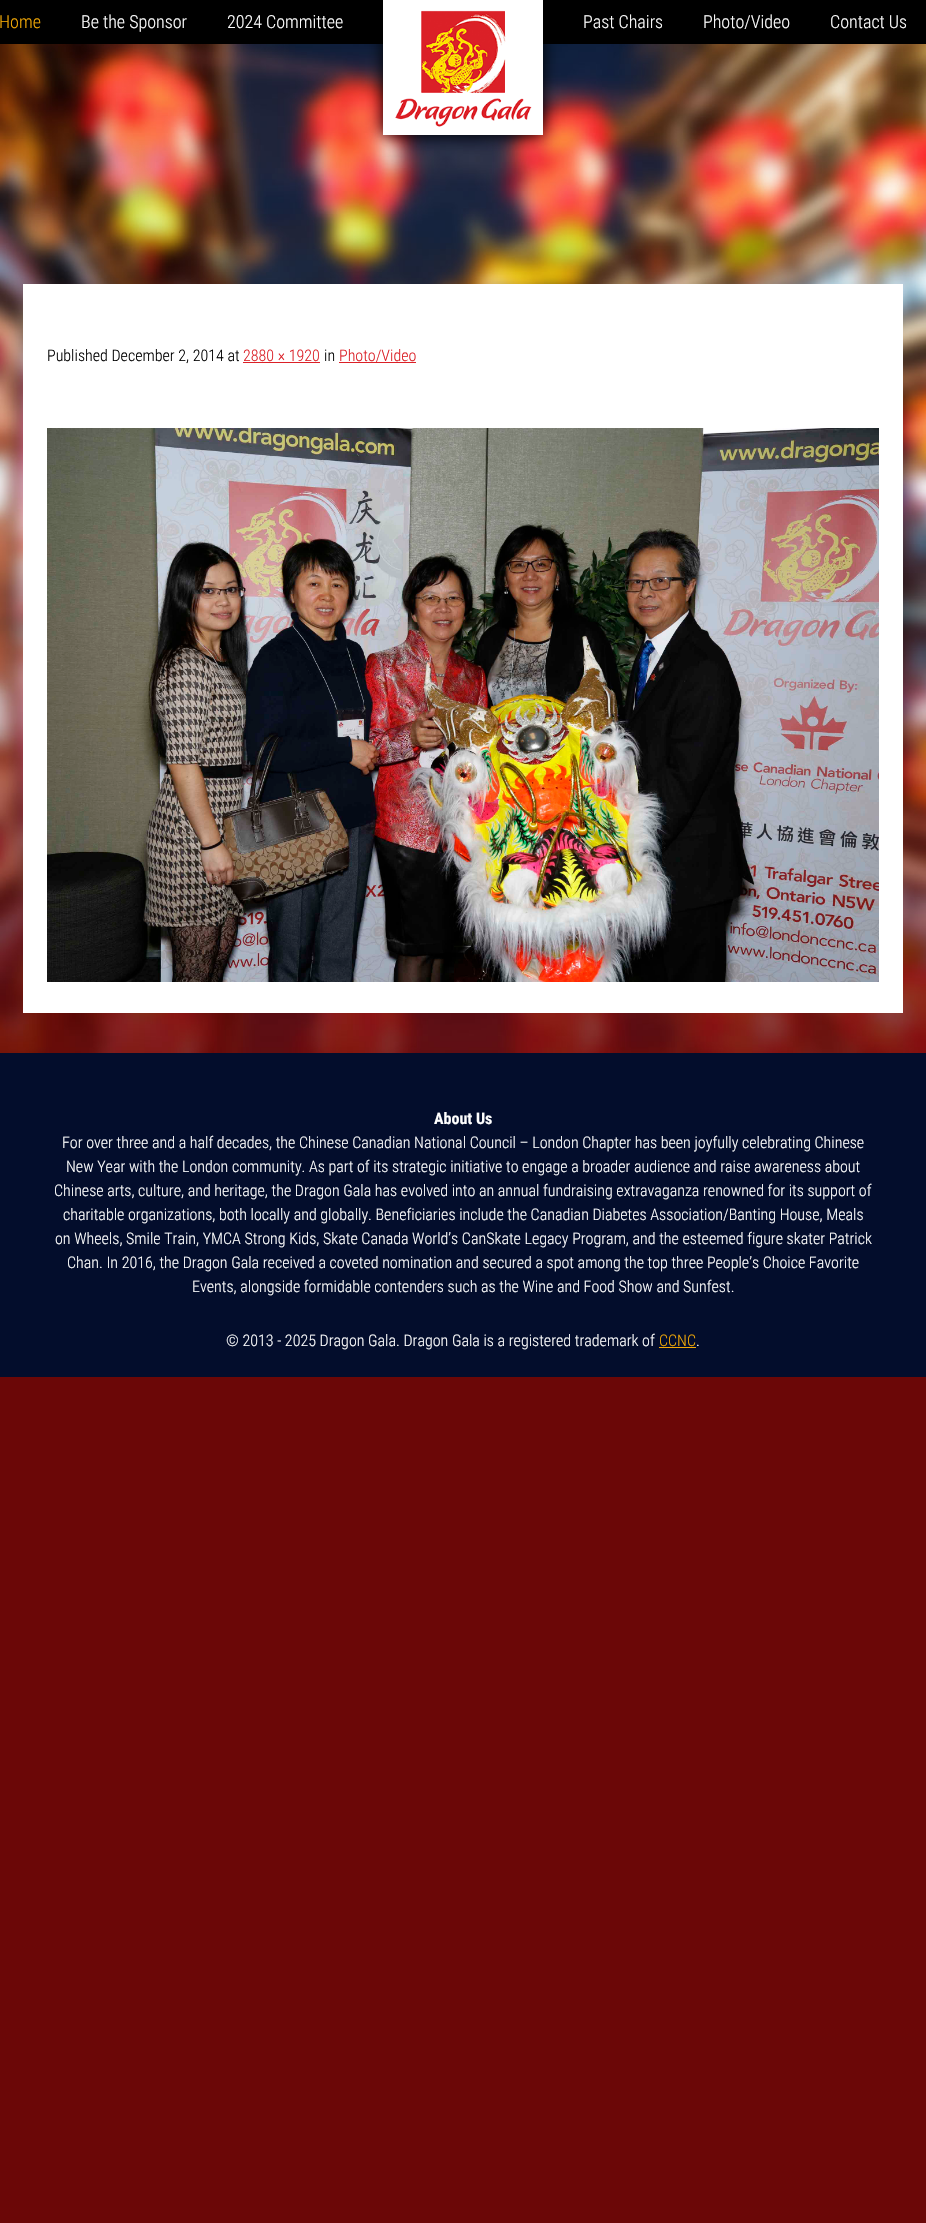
void draw(SkCanvas* canvas) {
    SkPaint paint;
    paint.setAntiAlias(true);
    auto face = [&](const char* family, int weight, float size, bool italic = false) {
        SkFontStyle style(weight, SkFontStyle::kNormal_Width,
            italic ? SkFontStyle::kItalic_Slant : SkFontStyle::kUpright_Slant);
        SkFont result(fontMgr->matchFamilyStyle(family, style), size);
        result.setSubpixel(true);
        return result;
    };
    auto write = [&](const char* s, float x, float y, const SkFont& font, SkColor color) {
        SkPaint ink(SkColor4f::FromColor(color));
        ink.setAntiAlias(true);
        canvas->drawString(s, x, y, font, ink);
    };
    auto block = [&](float x, float y, float w, float h, SkColor color) {
        SkPaint ink(SkColor4f::FromColor(color));
        ink.setAntiAlias(true);
        canvas->drawRect(SkRect::MakeXYWH(x, y, w, h), ink);
    };
    auto paste = [&](const char* path, float x, float y, float w, float h) {
        auto image = SkImages::DeferredFromEncodedData(SkData::MakeFromFileName(path));
        canvas->drawImageRect(image, SkRect::MakeXYWH(x, y, w, h), SkSamplingOptions());
    };
    canvas->clear(SkColorSetRGB(107, 7, 7));
    paste("pic1.png", 0, 44, 926, 1009);
    block(0, 0, 926, 44, SK_ColorBLACK);
    paint.setColor(SK_ColorBLACK);
    paint.setMaskFilter(SkMaskFilter::MakeBlur(kNormal_SkBlurStyle, 7.5f));
    canvas->drawRect(SkRect::MakeXYWH(383, -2, 160, 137), paint);
    paint.setMaskFilter(nullptr);
    block(383, 0, 160, 135, SK_ColorWHITE);
    paste("pic2.png", 395, 10, 137, 117);
    auto kFont1 = face("Roboto Condensed", 300, 18);
    write("Home", -1, 28, kFont1, SkColorSetRGB(245, 170, 6));
    write("Be the Sponsor", 81, 28, kFont1, SK_ColorWHITE);
    write("2024 Committee", 227, 28, kFont1, SK_ColorWHITE);
    write("Past Chairs", 583, 28, kFont1, SK_ColorWHITE);
    write("Photo/Video", 703, 28, kFont1, SK_ColorWHITE);
    write("Contact Us", 830, 28, kFont1, SK_ColorWHITE);
    block(23, 284, 880, 729, SK_ColorWHITE);
    auto kFont2 = face("Roboto Condensed", 300, 16);
    write("Published December 2, 2014 at", 47, 361, kFont2, SK_ColorBLACK);
    write("2880 × 1920", 243, 361, kFont2, SkColorSetRGB(219, 32, 39));
    block(243, 362, 77, 1, SkColorSetRGB(219, 32, 39));
    write("in", 324, 361, kFont2, SK_ColorBLACK);
    write("Photo/Video", 339, 361, kFont2, SkColorSetRGB(219, 32, 39));
    block(339, 362, 77, 1, SkColorSetRGB(219, 32, 39));
    paste("pic3.png", 47, 428, 832, 554);
    block(0, 1053, 926, 324, SkColorSetRGB(3, 13, 44));
    auto kFont3 = face("Roboto Condensed", 700, 16);
    write("About Us", 434, 1124, kFont3, SK_ColorWHITE);
    write("For over three and a half decades, the Chinese Canadian National Council – London Chapter has been joyfully celebrating Chinese", 62, 1148, kFont2, SK_ColorWHITE);
    write("New Year with the London community. As part of its strategic initiative to engage a broader audience and raise awareness about", 66, 1172, kFont2, SK_ColorWHITE);
    write("Chinese arts, culture, and heritage, the Dragon Gala has evolved into an annual fundraising extravaganza renowned for its support of", 54, 1196, kFont2, SK_ColorWHITE);
    write("charitable organizations, both locally and globally. Beneficiaries include the Canadian Diabetes Association/Banting House, Meals", 63, 1220, kFont2, SK_ColorWHITE);
    write("on Wheels, Smile Train, YMCA Strong Kids, Skate Canada World’s CanSkate Legacy Program, and the esteemed figure skater Patrick", 55, 1244, kFont2, SK_ColorWHITE);
    write("Chan. In 2016, the Dragon Gala received a coveted nomination and secured a spot among the top three People’s Choice Favorite", 67, 1268, kFont2, SK_ColorWHITE);
    write("Events, alongside formidable contenders such as the Wine and Food Show and Sunfest.", 192, 1292, kFont2, SK_ColorWHITE);
    write("© 2013 - 2025 Dragon Gala. Dragon Gala is a registered trademark of", 226, 1346, kFont2, SK_ColorWHITE);
    write("CCNC", 659, 1346, kFont2, SkColorSetRGB(245, 170, 6));
    write(".", 696, 1346, kFont2, SK_ColorWHITE);
    block(659, 1347, 37, 1, SkColorSetRGB(245, 170, 6));
}
